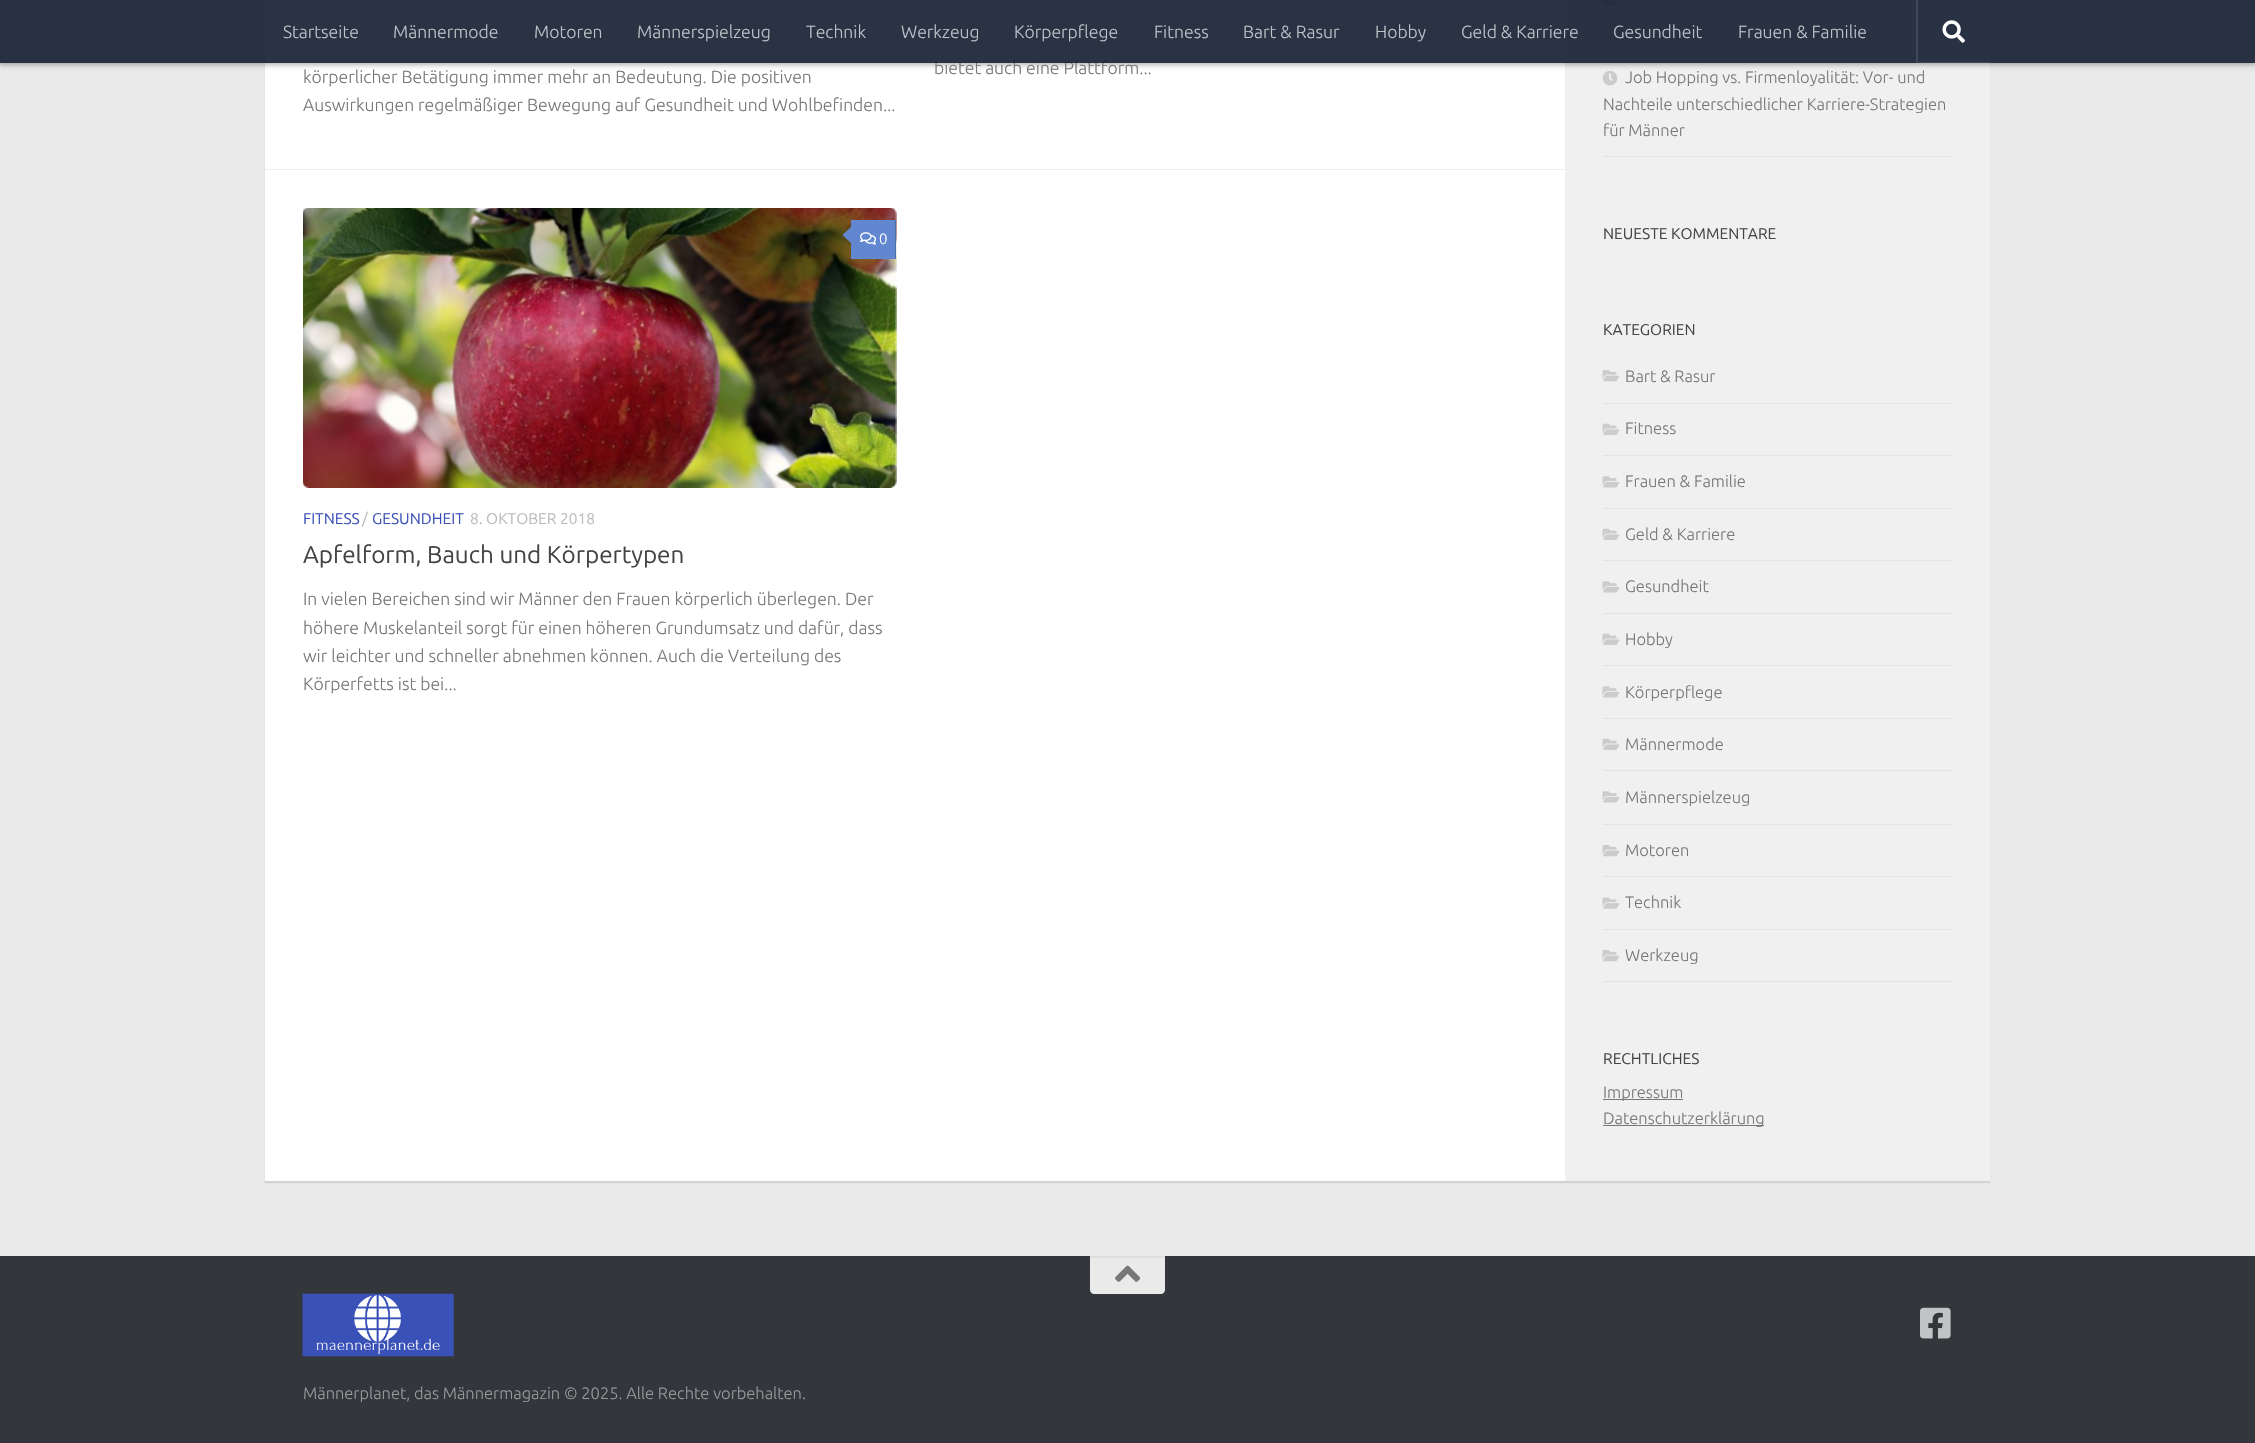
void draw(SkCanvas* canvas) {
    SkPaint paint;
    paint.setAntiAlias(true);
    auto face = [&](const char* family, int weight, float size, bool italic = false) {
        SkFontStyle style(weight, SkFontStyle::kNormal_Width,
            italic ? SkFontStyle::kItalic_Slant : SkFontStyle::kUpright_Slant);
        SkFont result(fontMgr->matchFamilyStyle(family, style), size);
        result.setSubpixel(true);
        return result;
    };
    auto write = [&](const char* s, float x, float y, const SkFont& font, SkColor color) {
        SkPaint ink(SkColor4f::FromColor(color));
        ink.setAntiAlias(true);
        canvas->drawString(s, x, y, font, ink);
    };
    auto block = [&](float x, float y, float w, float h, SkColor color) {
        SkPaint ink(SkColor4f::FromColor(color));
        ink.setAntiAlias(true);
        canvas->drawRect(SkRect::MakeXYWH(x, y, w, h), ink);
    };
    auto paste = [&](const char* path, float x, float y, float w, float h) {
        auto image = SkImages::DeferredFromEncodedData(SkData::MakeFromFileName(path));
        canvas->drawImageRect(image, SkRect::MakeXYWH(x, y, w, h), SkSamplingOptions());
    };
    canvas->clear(SkColorSetRGB(234, 234, 234));
    paint.setColor(SkColorSetARGB(26, 0, 0, 0));
    paint.setMaskFilter(SkMaskFilter::MakeBlur(kNormal_SkBlurStyle, 0.5f));
    canvas->drawRect(SkRect::MakeXYWH(265, -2, 1725, 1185), paint);
    paint.setMaskFilter(nullptr);
    block(265, 0, 1300, 1181, SK_ColorWHITE);
    block(1565, 0, 425, 1181, SkColorSetRGB(240, 240, 240));
    block(1603, 51, 350, 1, SkColorSetRGB(228, 228, 228));
    paste("pic4.png", 1602, 0, 16, 7);
    paste("pic5.png", 1602, 71, 16, 15);
    canvas->save();
    canvas->clipPath(SkPathBuilder(SkPathFillType::kEvenOdd).moveTo(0, 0).lineTo(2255, 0).lineTo(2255, 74).lineTo(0, 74).close().moveTo(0, 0).lineTo(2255, 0).lineTo(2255, 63).lineTo(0, 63).close().detach(), true);
    paint.setColor(SkColorSetARGB(77, 0, 0, 0));
    paint.setMaskFilter(SkMaskFilter::MakeBlur(kNormal_SkBlurStyle, 2.5f));
    canvas->drawRect(SkRect::MakeXYWH(-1, 0, 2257, 65), paint);
    paint.setMaskFilter(nullptr);
    canvas->restore();
    auto kFont1 = face("Ubuntu", 300, 17.6f);
    write("bietet auch eine Plattform...", 934, 74, kFont1, SkColorSetRGB(118, 118, 118));
    block(0, 0, 2255, 63, SkColorSetARGB(230, 18, 29, 48));
    write("Startseite", 283, 38, kFont1, SkColorSetRGB(191, 194, 199));
    write("Männermode", 393, 38, kFont1, SkColorSetRGB(191, 194, 199));
    write("Motoren", 534, 38, kFont1, SkColorSetRGB(191, 194, 199));
    write("Männerspielzeug", 637, 38, kFont1, SkColorSetRGB(191, 194, 199));
    write("Technik", 806, 38, kFont1, SkColorSetRGB(191, 194, 199));
    write("Werkzeug", 901, 38, kFont1, SkColorSetRGB(191, 194, 199));
    write("Körperpflege", 1014, 38, kFont1, SkColorSetRGB(191, 194, 199));
    write("Fitness", 1154, 38, kFont1, SkColorSetRGB(191, 194, 199));
    write("Bart & Rasur", 1243, 38, kFont1, SkColorSetRGB(191, 194, 199));
    write("Hobby", 1375, 38, kFont1, SkColorSetRGB(191, 194, 199));
    write("Geld & Karriere", 1461, 38, kFont1, SkColorSetRGB(191, 194, 199));
    write("Gesundheit", 1613, 38, kFont1, SkColorSetRGB(191, 194, 199));
    write("Frauen & Familie", 1738, 38, kFont1, SkColorSetRGB(191, 194, 199));
    paint.setColor(SkColorSetARGB(26, 255, 255, 255));
    canvas->drawPath(SkPathBuilder().moveTo(1916, 0).lineTo(1916, 63).lineTo(1989, 63).lineTo(1989, 62).lineTo(1918, 62).lineTo(1918, 0).close().detach(), paint);
    paste("pic1.png", 1942, 20, 23, 23);
    block(265, 169, 1300, 1, SkColorSetRGB(238, 238, 238));
    write("körperlicher Betätigung immer mehr an Bedeutung. Die positiven", 303, 83, kFont1, SkColorSetRGB(118, 118, 118));
    write("Auswirkungen regelmäßiger Bewegung auf Gesundheit und Wohlbefinden...", 303, 111, kFont1, SkColorSetRGB(118, 118, 118));
    paste("pic2.png", 303, 208, 594, 280);
    block(851, 220, 44, 39, SkColorSetRGB(98, 135, 209));
    block(895, 220, 1, 39, SkColorSetRGB(78, 108, 167));
    paint.setColor(SkColorSetRGB(98, 135, 209));
    canvas->drawPath(SkPathBuilder().moveTo(854, 224).lineTo(854, 246).lineTo(842.5f, 235).close().detach(), paint);
    paste("pic3.png", 860, 232, 17, 13);
    auto kFont2 = face("Ubuntu", 300, 15);
    write("0", 879, 244, kFont2, SK_ColorWHITE);
    auto kFont3 = face("Ubuntu", 400, 15.5f);
    write("FITNESS", 303, 524, kFont3, SkColorSetRGB(59, 81, 183));
    write("/", 362, 524, kFont3, SkColorSetRGB(187, 187, 187));
    write("GESUNDHEIT", 372, 524, kFont3, SkColorSetRGB(59, 81, 183));
    write("8. OKTOBER 2018", 470, 524, kFont3, SkColorSetRGB(187, 187, 187));
    auto kFont4 = face("Ubuntu", 400, 24.25f);
    write("Apfelform, Bauch und Körpertypen", 303, 563, kFont4, SkColorSetRGB(68, 68, 68));
    write("In vielen Bereichen sind wir Männer den Frauen körperlich überlegen. Der", 303, 605, kFont1, SkColorSetRGB(118, 118, 118));
    write("höhere Muskelanteil sorgt für einen höheren Grundumsatz und dafür, dass", 303, 634, kFont1, SkColorSetRGB(118, 118, 118));
    write("wir leichter und schneller abnehmen können. Auch die Verteilung des", 303, 662, kFont1, SkColorSetRGB(118, 118, 118));
    write("Körperfetts ist bei...", 303, 690, kFont1, SkColorSetRGB(118, 118, 118));
    block(1603, 156, 350, 1, SkColorSetRGB(228, 228, 228));
    auto kFont5 = face("Ubuntu", 300, 16.5f);
    write("Job Hopping vs. Firmenloyalität: Vor- und", 1625, 83, kFont5, SkColorSetRGB(118, 118, 118));
    write("Nachteile unterschiedlicher Karriere-Strategien", 1603, 110, kFont5, SkColorSetRGB(118, 118, 118));
    write("für Männer", 1603, 136, kFont5, SkColorSetRGB(118, 118, 118));
    write("NEUESTE KOMMENTARE", 1603, 239, kFont3, SkColorSetRGB(68, 68, 68));
    write("KATEGORIEN", 1603, 335, kFont3, SkColorSetRGB(68, 68, 68));
    block(1603, 403, 350, 1, SkColorSetRGB(228, 228, 228));
    paste("pic6.png", 1602, 370, 18, 12);
    write("Bart & Rasur", 1625, 382, kFont5, SkColorSetRGB(118, 118, 118));
    block(1603, 455, 350, 1, SkColorSetRGB(228, 228, 228));
    paste("pic7.png", 1602, 423, 18, 12);
    write("Fitness", 1625, 434, kFont5, SkColorSetRGB(118, 118, 118));
    block(1603, 508, 350, 1, SkColorSetRGB(228, 228, 228));
    paste("pic8.png", 1602, 476, 18, 12);
    write("Frauen & Familie", 1625, 487, kFont5, SkColorSetRGB(118, 118, 118));
    block(1603, 560, 350, 1, SkColorSetRGB(228, 228, 228));
    paste("pic7.png", 1602, 528, 18, 12);
    write("Geld & Karriere", 1625, 540, kFont5, SkColorSetRGB(118, 118, 118));
    block(1603, 613, 350, 1, SkColorSetRGB(228, 228, 228));
    paste("pic8.png", 1602, 581, 18, 12);
    write("Gesundheit", 1625, 592, kFont5, SkColorSetRGB(118, 118, 118));
    block(1603, 665, 350, 1, SkColorSetRGB(228, 228, 228));
    paste("pic7.png", 1602, 633, 18, 12);
    write("Hobby", 1625, 645, kFont5, SkColorSetRGB(118, 118, 118));
    block(1603, 718, 350, 1, SkColorSetRGB(228, 228, 228));
    paste("pic8.png", 1602, 686, 18, 12);
    write("Körperpflege", 1625, 698, kFont5, SkColorSetRGB(118, 118, 118));
    block(1603, 770, 350, 1, SkColorSetRGB(228, 228, 228));
    paste("pic7.png", 1602, 738, 18, 12);
    write("Männermode", 1625, 750, kFont5, SkColorSetRGB(118, 118, 118));
    block(1603, 824, 350, 1, SkColorSetRGB(228, 228, 228));
    paste("pic8.png", 1602, 791, 18, 12);
    write("Männerspielzeug", 1625, 803, kFont5, SkColorSetRGB(118, 118, 118));
    block(1603, 876, 350, 1, SkColorSetRGB(228, 228, 228));
    paste("pic6.png", 1602, 845, 18, 12);
    write("Motoren", 1625, 856, kFont5, SkColorSetRGB(118, 118, 118));
    block(1603, 929, 350, 1, SkColorSetRGB(228, 228, 228));
    paste("pic9.png", 1602, 897, 18, 12);
    write("Technik", 1625, 908, kFont5, SkColorSetRGB(118, 118, 118));
    block(1603, 981, 350, 1, SkColorSetRGB(228, 228, 228));
    paste("pic6.png", 1602, 950, 18, 12);
    write("Werkzeug", 1625, 961, kFont5, SkColorSetRGB(118, 118, 118));
    write("RECHTLICHES", 1603, 1064, kFont3, SkColorSetRGB(68, 68, 68));
    block(1603, 1099, 80, 1, SkColorSetRGB(119, 119, 119));
    write("Impressum", 1603, 1098, kFont5, SkColorSetRGB(118, 118, 118));
    block(1603, 1125, 161, 1, SkColorSetRGB(119, 119, 119));
    write("Datenschutzerklärung", 1603, 1124, kFont5, SkColorSetRGB(118, 118, 118));
    block(0, 1256, 2255, 187, SkColorSetRGB(51, 54, 59));
    paint.setColor(SkColorSetRGB(234, 234, 234));
    canvas->drawPath(SkPathBuilder().moveTo(1090, 1256).lineTo(1165, 1256).lineTo(1165, 1290).cubicTo(1165, 1292, 1163, 1294, 1161, 1294).lineTo(1094, 1294).cubicTo(1092, 1294, 1090, 1292, 1090, 1290).close().detach(), paint);
    block(1090, 1256, 75, 2, SkColorSetRGB(222, 222, 222));
    paste("pic10.png", 1115, 1265, 25, 17);
    paste("pic11.png", 1920, 1307, 31, 32);
    paste("pic12.png", 302, 1293, 152, 64);
    write("Männerplanet, das Männermagazin © 2025. Alle Rechte vorbehalten.", 303, 1399, kFont5, SkColorSetRGB(153, 155, 157));
}
